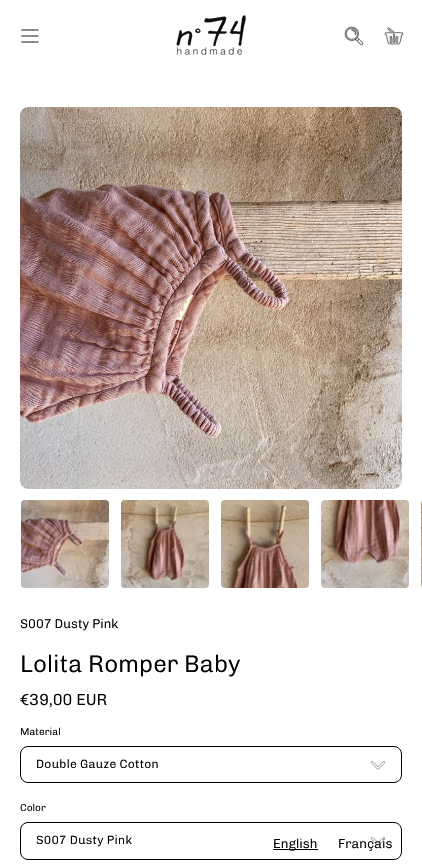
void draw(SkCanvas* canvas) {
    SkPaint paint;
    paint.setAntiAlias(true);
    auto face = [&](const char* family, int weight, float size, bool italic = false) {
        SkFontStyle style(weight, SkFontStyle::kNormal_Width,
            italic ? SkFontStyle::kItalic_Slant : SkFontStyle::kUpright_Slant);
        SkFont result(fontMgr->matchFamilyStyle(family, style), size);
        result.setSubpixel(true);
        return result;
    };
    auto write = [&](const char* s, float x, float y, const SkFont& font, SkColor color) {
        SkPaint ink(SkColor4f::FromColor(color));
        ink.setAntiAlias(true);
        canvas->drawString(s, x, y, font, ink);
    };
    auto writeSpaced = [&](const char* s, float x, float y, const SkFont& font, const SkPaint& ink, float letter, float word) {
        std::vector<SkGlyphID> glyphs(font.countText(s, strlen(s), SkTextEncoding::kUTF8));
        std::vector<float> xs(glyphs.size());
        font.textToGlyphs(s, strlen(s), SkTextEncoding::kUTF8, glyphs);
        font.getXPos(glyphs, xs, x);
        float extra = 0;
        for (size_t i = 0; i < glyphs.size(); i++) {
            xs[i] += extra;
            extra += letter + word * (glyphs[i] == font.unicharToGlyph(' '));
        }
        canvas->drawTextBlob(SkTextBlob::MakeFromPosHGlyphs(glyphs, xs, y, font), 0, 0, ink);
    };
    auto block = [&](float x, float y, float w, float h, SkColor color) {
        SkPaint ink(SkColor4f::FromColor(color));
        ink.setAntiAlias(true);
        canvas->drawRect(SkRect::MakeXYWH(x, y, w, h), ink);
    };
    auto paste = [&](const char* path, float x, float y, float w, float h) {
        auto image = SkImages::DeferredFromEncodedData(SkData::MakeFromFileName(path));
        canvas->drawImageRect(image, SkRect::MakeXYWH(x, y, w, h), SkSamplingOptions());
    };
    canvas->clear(SK_ColorWHITE);
    paint.setStyle(SkPaint::kStroke_Style);
    paint.setStrokeWidth(1.5f);
    paint.setStrokeCap(SkPaint::kRound_Cap);
    paint.setStrokeJoin(SkPaint::kRound_Join);
    paint.setColor(SkColorSetRGB(102, 102, 102));
    canvas->drawPath(SkPathBuilder().moveTo(22, 36).lineTo(38, 36).moveTo(22, 30).lineTo(38, 30).moveTo(22, 42).lineTo(38, 42).detach(), paint);
    paste("pic1.png", 176, 15, 70, 40);
    paste("pic2.png", 344, 26, 20, 20);
    paste("pic3.png", 384, 27, 20, 18);
    paste("pic4.png", 20, 107, 382, 382);
    paste("pic5.png", 21, 500, 88, 88);
    paste("pic6.png", 121, 500, 88, 88);
    paste("pic7.png", 221, 500, 88, 88);
    paste("pic8.png", 321, 500, 88, 88);
    paste("pic9.png", 421, 501, 1, 86);
    auto kFont1 = face("Chivo", 300, 12.75f);
    write("S007 Dusty Pink", 20, 628, kFont1, SK_ColorBLACK);
    auto kFont2 = face("Chivo", 300, 24);
    write("Lolita Romper Baby", 20, 672, kFont2, SK_ColorBLACK);
    auto kFont3 = face("Chivo", 300, 16);
    write("€39,00 EUR", 20, 705, kFont3, SK_ColorBLACK);
    auto kFont4 = face("Chivo", 300, 10);
    write("Material", 20, 735, kFont4, SK_ColorBLACK);
    paint.setStrokeWidth(1);
    paint.setStrokeCap(SkPaint::kButt_Cap);
    paint.setStrokeJoin(SkPaint::kMiter_Join);
    paint.setColor(SK_ColorBLACK);
    canvas->drawRoundRect(SkRect::MakeXYWH(20.5f, 746.5f, 381, 36), 7.5f, 7.5f, paint);
    auto kFont5 = face("Chivo", 300, 12);
    paint.setStyle(SkPaint::kFill_Style);
    writeSpaced("Double Gauze Cotton", 36, 768, kFont5, paint, 0.25f, 0);
    paste("pic10.png", 370, 761, 16, 9);
    write("Color", 20, 811, kFont4, SK_ColorBLACK);
    paint.setStyle(SkPaint::kStroke_Style);
    canvas->drawRoundRect(SkRect::MakeXYWH(20.5f, 822.5f, 381, 37), 7.5f, 7.5f, paint);
    paint.setStyle(SkPaint::kFill_Style);
    writeSpaced("S007 Dusty Pink", 36, 844, kFont5, paint, 0.25f, 0);
    paste("pic10.png", 370, 837, 16, 9);
    block(273, 849, 45, 1, SK_ColorBLACK);
    auto kFont6 = face("Chivo", 300, 13);
    write("English", 273, 848, kFont6, SK_ColorBLACK);
    write("Français", 338, 848, kFont6, SK_ColorBLACK);
}
